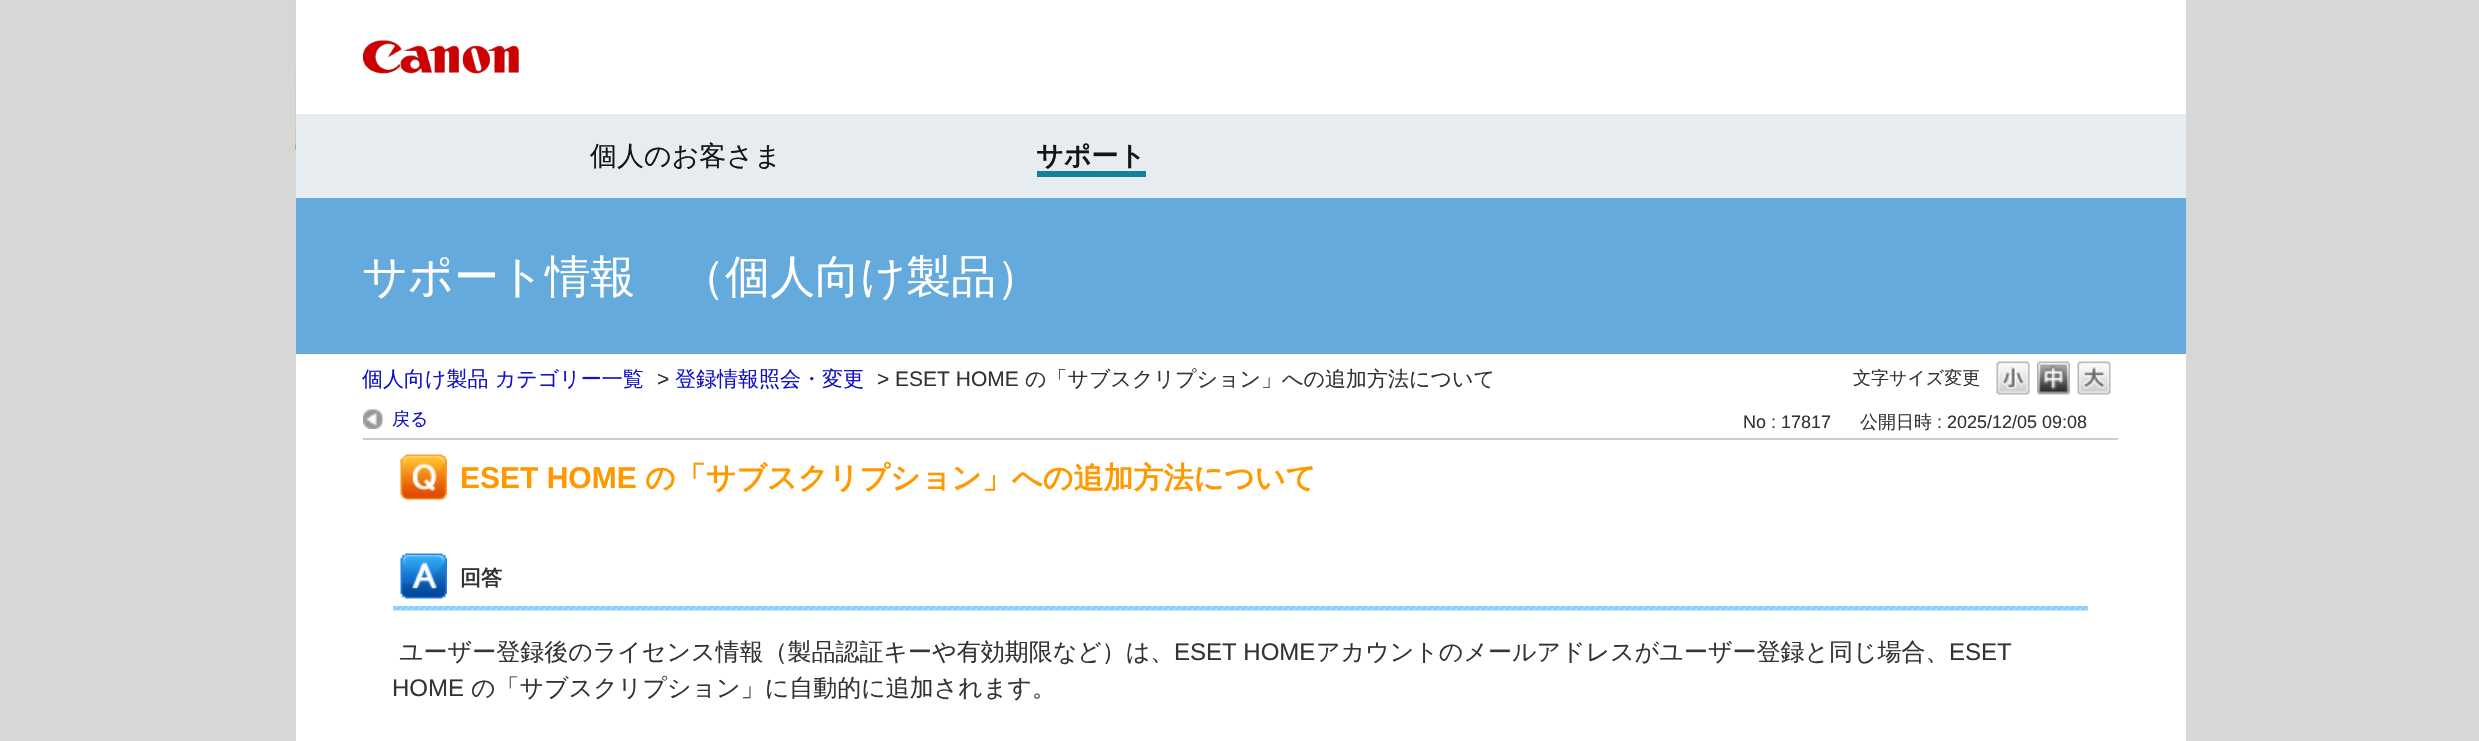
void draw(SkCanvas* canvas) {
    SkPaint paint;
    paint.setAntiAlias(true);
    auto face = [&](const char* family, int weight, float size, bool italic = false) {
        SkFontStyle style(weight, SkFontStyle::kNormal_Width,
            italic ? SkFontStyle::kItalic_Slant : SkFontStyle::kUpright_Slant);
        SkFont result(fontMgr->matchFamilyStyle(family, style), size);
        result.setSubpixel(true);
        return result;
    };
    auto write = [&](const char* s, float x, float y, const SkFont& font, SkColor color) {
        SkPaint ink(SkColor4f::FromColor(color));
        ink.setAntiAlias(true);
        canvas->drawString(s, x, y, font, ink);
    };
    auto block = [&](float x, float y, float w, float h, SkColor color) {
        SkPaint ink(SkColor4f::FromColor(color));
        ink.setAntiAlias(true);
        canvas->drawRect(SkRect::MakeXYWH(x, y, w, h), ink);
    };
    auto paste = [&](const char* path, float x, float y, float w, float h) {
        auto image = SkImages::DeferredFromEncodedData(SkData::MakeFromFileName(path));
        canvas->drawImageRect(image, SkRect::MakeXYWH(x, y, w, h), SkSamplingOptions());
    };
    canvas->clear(SkColorSetRGB(215, 215, 215));
    block(296, 354, 1890, 387, SK_ColorWHITE);
    paste("pic1.png", 295, 0, 1, 150);
    block(296, 0, 1890, 114, SK_ColorWHITE);
    paste("pic2.png", 363, 40, 156, 34);
    block(296, 114, 1890, 84, SkColorSetRGB(230, 236, 239));
    auto kFont1 = face("WenQuanYi Zen Hei", 500, 27);
    write("個人のお客さま", 590, 165, kFont1, SkColorSetRGB(20, 20, 20));
    auto kFont2 = face("WenQuanYi Zen Hei", 700, 27);
    write("サポート", 1036, 165, kFont2, SkColorSetRGB(20, 20, 20));
    block(1037, 171, 109, 6, SkColorSetRGB(20, 130, 153));
    block(296, 198, 1890, 156, SkColorSetRGB(101, 170, 221));
    auto kFont3 = face("WenQuanYi Zen Hei", 500, 45);
    write("サポート情報　（個人向け製品）", 362, 292, kFont3, SK_ColorWHITE);
    auto kFont4 = face("WenQuanYi Zen Hei", 500, 21);
    write("個人向け製品 カテゴリー一覧", 362, 386, kFont4, SkColorSetRGB(17, 17, 204));
    auto kFont5 = face("Liberation Sans", 400, 21);
    write(">", 657, 386, kFont5, SkColorSetRGB(51, 51, 51));
    write("登録情報照会・変更", 675, 386, kFont4, SkColorSetRGB(17, 17, 204));
    write("> ESET HOME", 877, 386, kFont5, SkColorSetRGB(51, 51, 51));
    write("の「サブスクリプション」への追加方法について", 1025, 386, kFont4, SkColorSetRGB(51, 51, 51));
    auto kFont6 = face("WenQuanYi Zen Hei", 500, 18);
    write("文字サイズ変更", 1853, 384, kFont6, SkColorSetRGB(51, 51, 51));
    paste("pic3.png", 1996, 361, 34, 34);
    paste("pic4.png", 2037, 361, 33, 34);
    paste("pic5.png", 2077, 361, 34, 34);
    block(363, 438, 1755, 2, SkColorSetRGB(204, 204, 204));
    paste("pic6.png", 363, 409, 20, 20);
    write("戻る", 392, 425, kFont6, SkColorSetRGB(17, 17, 204));
    auto kFont7 = face("Liberation Sans", 400, 18);
    write("No : 17817", 1743, 428, kFont7, SkColorSetRGB(51, 51, 51));
    write("公開日時", 1860, 428, kFont6, SkColorSetRGB(51, 51, 51));
    write(": 2025/12/05 09:08", 1937, 428, kFont7, SkColorSetRGB(51, 51, 51));
    paste("pic7.png", 400, 454, 47, 46);
    auto kFont8 = face("Liberation Sans", 700, 30);
    write("ESET HOME", 460, 488, kFont8, SkColorSetRGB(255, 153, 0));
    auto kFont9 = face("WenQuanYi Zen Hei", 700, 30);
    write("の「サブスクリプション」への追加方法について", 645, 488, kFont9, SkColorSetRGB(255, 153, 0));
    paste("pic8.png", 393, 606, 1695, 5);
    paste("pic9.png", 400, 553, 47, 46);
    auto kFont10 = face("WenQuanYi Zen Hei", 700, 21);
    write("回答", 460, 585, kFont10, SkColorSetRGB(51, 51, 51));
    auto kFont11 = face("WenQuanYi Zen Hei", 500, 24);
    write("ユーザー登録後のライセンス情報（製品認証キーや有効期限など）は、", 399, 660, kFont11, SkColorSetRGB(51, 51, 51));
    auto kFont12 = face("Liberation Sans", 400, 24);
    write("ESET HOME", 1174, 660, kFont12, SkColorSetRGB(51, 51, 51));
    write("アカウントのメールアドレスがユーザー登録と同じ場合、", 1316, 660, kFont11, SkColorSetRGB(51, 51, 51));
    write("ESET", 1949, 660, kFont12, SkColorSetRGB(51, 51, 51));
    write("HOME", 392, 696, kFont12, SkColorSetRGB(51, 51, 51));
    write("の「サブスクリプション」に自動的に追加されます。", 471, 696, kFont11, SkColorSetRGB(51, 51, 51));
}
